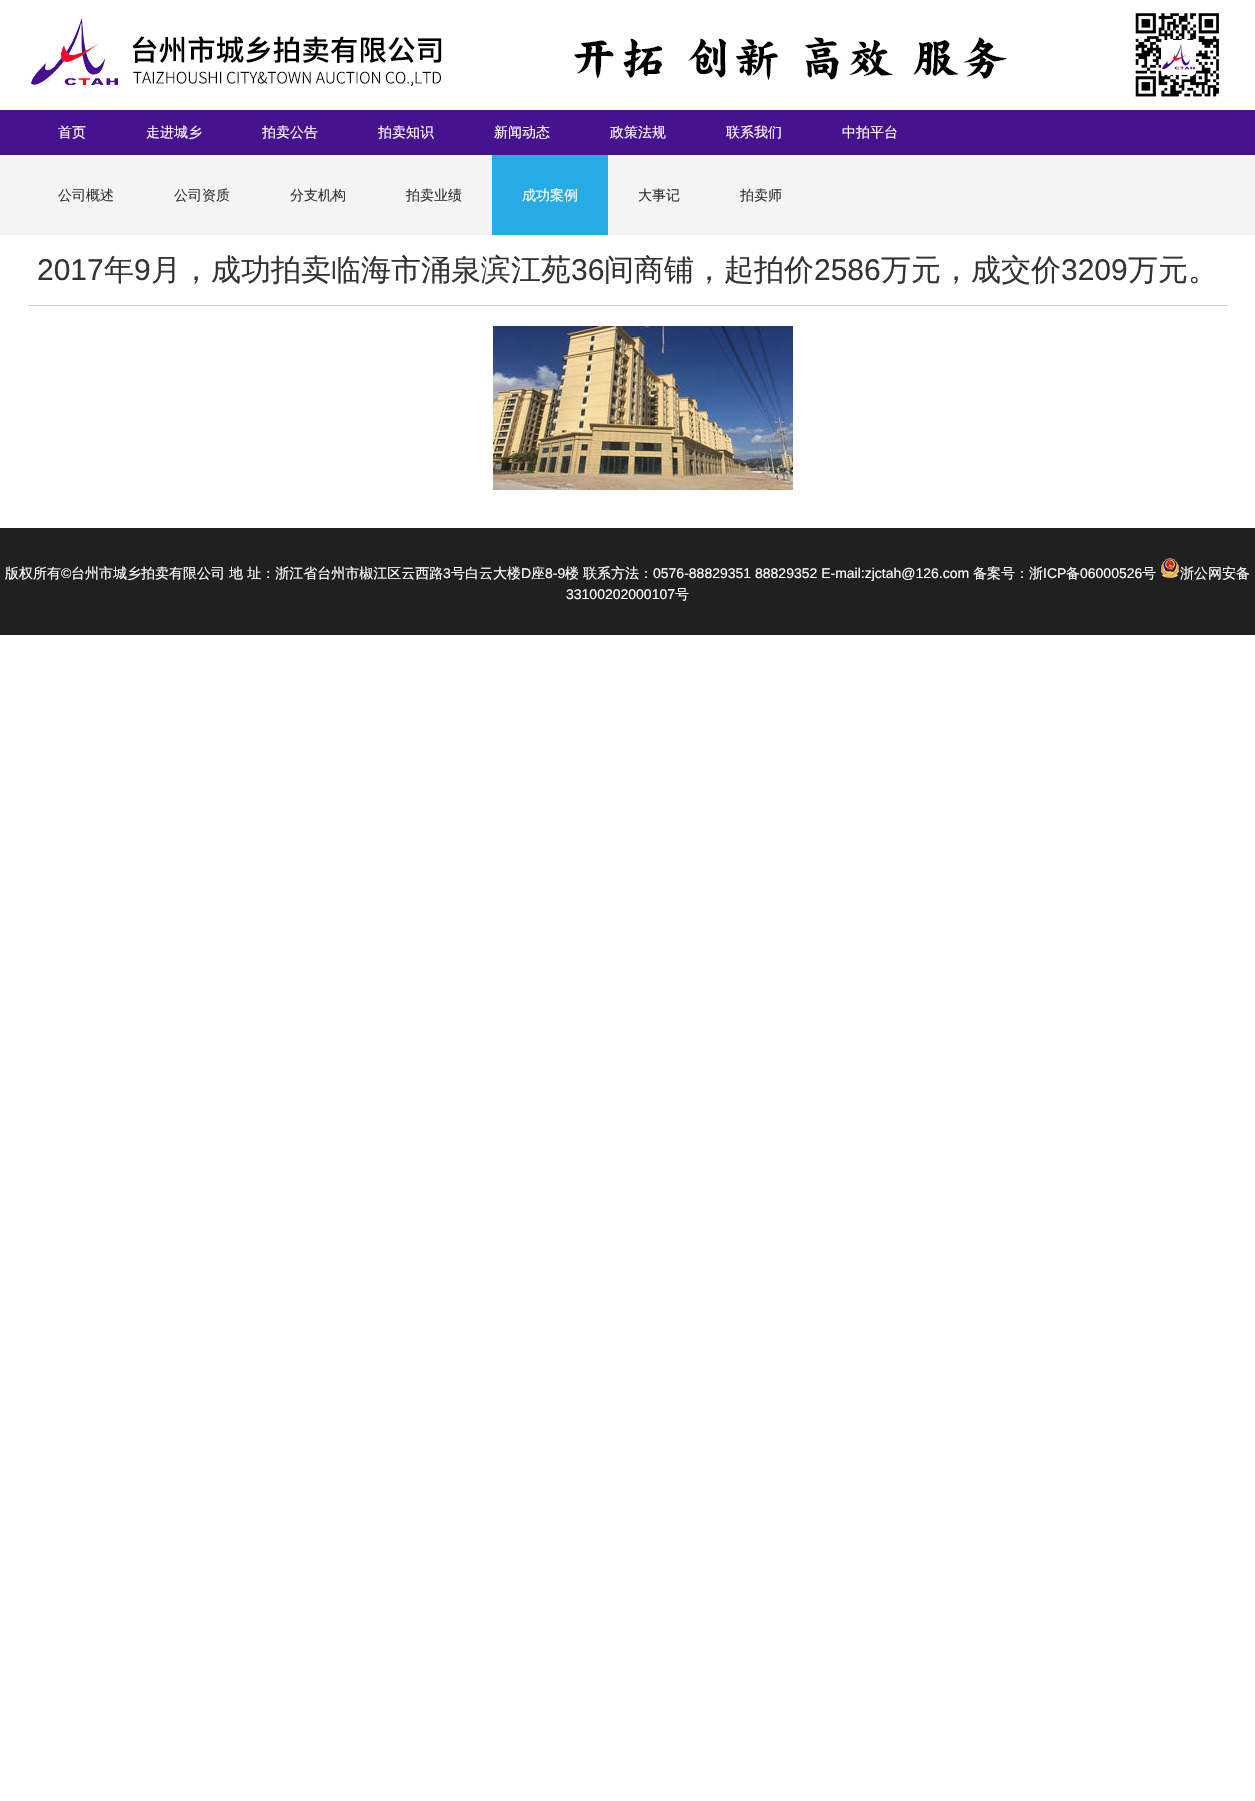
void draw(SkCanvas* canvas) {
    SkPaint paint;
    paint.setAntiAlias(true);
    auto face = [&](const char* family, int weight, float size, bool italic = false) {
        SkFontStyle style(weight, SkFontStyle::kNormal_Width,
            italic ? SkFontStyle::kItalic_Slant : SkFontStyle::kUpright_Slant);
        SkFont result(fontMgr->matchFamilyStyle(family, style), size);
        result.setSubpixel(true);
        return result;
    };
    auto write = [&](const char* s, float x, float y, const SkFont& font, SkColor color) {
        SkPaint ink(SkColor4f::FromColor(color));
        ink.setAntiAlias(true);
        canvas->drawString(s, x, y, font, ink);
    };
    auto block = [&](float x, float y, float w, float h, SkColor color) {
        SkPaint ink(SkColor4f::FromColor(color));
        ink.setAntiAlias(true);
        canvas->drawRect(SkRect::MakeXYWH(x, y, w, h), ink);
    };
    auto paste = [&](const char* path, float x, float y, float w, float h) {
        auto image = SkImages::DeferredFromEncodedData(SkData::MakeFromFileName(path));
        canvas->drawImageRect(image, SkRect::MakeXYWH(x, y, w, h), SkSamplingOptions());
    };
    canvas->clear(SK_ColorWHITE);
    paste("pic1.png", 28, 13, 1192, 84);
    block(0, 110, 1255, 45, SkColorSetRGB(70, 18, 142));
    auto kFont1 = face("WenQuanYi Zen Hei", 500, 14);
    write("首页", 58, 137, kFont1, SK_ColorWHITE);
    write("走进城乡", 146, 137, kFont1, SK_ColorWHITE);
    write("拍卖公告", 262, 137, kFont1, SK_ColorWHITE);
    write("拍卖知识", 378, 137, kFont1, SK_ColorWHITE);
    write("新闻动态", 494, 137, kFont1, SK_ColorWHITE);
    write("政策法规", 610, 137, kFont1, SK_ColorWHITE);
    write("联系我们", 726, 137, kFont1, SK_ColorWHITE);
    write("中拍平台", 842, 137, kFont1, SK_ColorWHITE);
    block(0, 155, 1255, 80, SkColorSetRGB(244, 244, 244));
    write("公司概述", 58, 200, kFont1, SkColorSetRGB(51, 51, 51));
    write("公司资质", 174, 200, kFont1, SkColorSetRGB(51, 51, 51));
    write("分支机构", 290, 200, kFont1, SkColorSetRGB(51, 51, 51));
    write("拍卖业绩", 406, 200, kFont1, SkColorSetRGB(51, 51, 51));
    block(492, 155, 116, 80, SkColorSetRGB(37, 172, 230));
    write("成功案例", 522, 200, kFont1, SK_ColorWHITE);
    write("大事记", 638, 200, kFont1, SkColorSetRGB(51, 51, 51));
    write("拍卖师", 740, 200, kFont1, SkColorSetRGB(51, 51, 51));
    block(28, 305, 1200, 1, SkColorSetRGB(204, 204, 204));
    auto kFont2 = face("Liberation Sans", 400, 30);
    write("2017", 37, 280, kFont2, SkColorSetRGB(51, 51, 51));
    auto kFont3 = face("WenQuanYi Zen Hei", 500, 30);
    write("年", 104, 280, kFont3, SkColorSetRGB(51, 51, 51));
    write("9", 134, 280, kFont2, SkColorSetRGB(51, 51, 51));
    write("月，成功拍卖临海市涌泉滨江苑", 151, 280, kFont3, SkColorSetRGB(51, 51, 51));
    write("36", 571, 280, kFont2, SkColorSetRGB(51, 51, 51));
    write("间商铺，起拍价", 604, 280, kFont3, SkColorSetRGB(51, 51, 51));
    write("2586", 814, 280, kFont2, SkColorSetRGB(51, 51, 51));
    write("万元，成交价", 881, 280, kFont3, SkColorSetRGB(51, 51, 51));
    write("3209", 1061, 280, kFont2, SkColorSetRGB(51, 51, 51));
    write("万元。", 1128, 280, kFont3, SkColorSetRGB(51, 51, 51));
    paste("pic2.png", 493, 326, 300, 164);
    block(0, 528, 1255, 107, SkColorSetRGB(32, 32, 32));
    write("版权所有", 5, 578, kFont1, SK_ColorWHITE);
    auto kFont4 = face("Liberation Sans", 400, 14);
    write("©", 61, 578, kFont4, SK_ColorWHITE);
    write("台州市城乡拍卖有限公司", 71, 578, kFont1, SK_ColorWHITE);
    write("地 址：浙江省台州市椒江区云西路", 229, 578, kFont1, SK_ColorWHITE);
    write("3", 443, 578, kFont4, SK_ColorWHITE);
    write("号白云大楼", 451, 578, kFont1, SK_ColorWHITE);
    write("D", 521, 578, kFont4, SK_ColorWHITE);
    write("座", 531, 578, kFont1, SK_ColorWHITE);
    write("8-9", 545, 578, kFont4, SK_ColorWHITE);
    write("楼", 565, 578, kFont1, SK_ColorWHITE);
    write("联系方法：", 583, 578, kFont1, SK_ColorWHITE);
    write("0576-88829351 88829352 E-mail:zjctah@126.com", 653, 578, kFont4, SK_ColorWHITE);
    write("备案号：浙", 973, 578, kFont1, SK_ColorWHITE);
    write("ICP", 1043, 578, kFont4, SK_ColorWHITE);
    write("备", 1066, 578, kFont1, SK_ColorWHITE);
    write("06000526", 1080, 578, kFont4, SK_ColorWHITE);
    write("号", 1142, 578, kFont1, SK_ColorWHITE);
    paste("pic3.png", 1161, 558, 18, 20);
    write("浙公网安备", 1180, 578, kFont1, SK_ColorWHITE);
    write("33100202000107", 566, 599, kFont4, SK_ColorWHITE);
    write("号", 675, 599, kFont1, SK_ColorWHITE);
}
